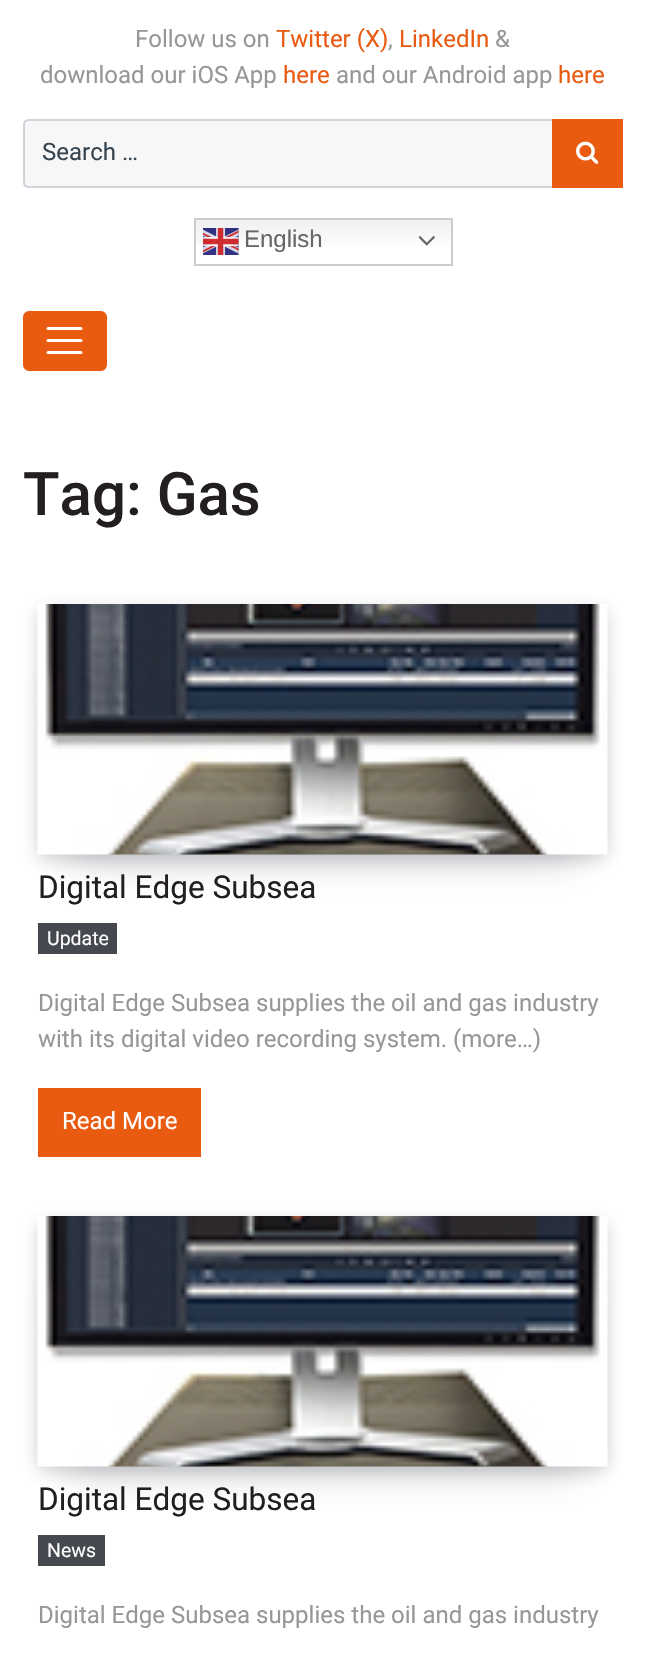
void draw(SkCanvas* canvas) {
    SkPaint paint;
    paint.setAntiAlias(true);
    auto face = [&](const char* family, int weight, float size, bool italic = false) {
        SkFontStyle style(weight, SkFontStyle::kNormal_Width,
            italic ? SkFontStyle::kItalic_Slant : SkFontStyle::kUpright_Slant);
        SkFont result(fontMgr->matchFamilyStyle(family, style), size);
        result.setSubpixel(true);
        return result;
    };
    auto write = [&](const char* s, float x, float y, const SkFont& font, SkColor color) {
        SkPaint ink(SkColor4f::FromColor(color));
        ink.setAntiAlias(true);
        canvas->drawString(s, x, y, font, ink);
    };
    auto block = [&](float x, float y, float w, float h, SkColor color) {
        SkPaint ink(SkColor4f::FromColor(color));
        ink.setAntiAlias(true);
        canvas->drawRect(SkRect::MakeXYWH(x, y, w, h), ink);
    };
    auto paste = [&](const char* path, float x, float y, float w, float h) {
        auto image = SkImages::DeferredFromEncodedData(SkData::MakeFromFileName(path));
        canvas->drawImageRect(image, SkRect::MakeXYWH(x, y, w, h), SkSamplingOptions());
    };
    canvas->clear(SK_ColorWHITE);
    auto kFont1 = face("Roboto", 400, 24);
    write("Follow us on", 135, 47, kFont1, SkColorSetRGB(152, 150, 150));
    write("Twitter (X)", 276, 47, kFont1, SkColorSetRGB(233, 91, 16));
    write(",", 388, 47, kFont1, SkColorSetRGB(152, 150, 150));
    write("LinkedIn", 399, 47, kFont1, SkColorSetRGB(233, 91, 16));
    write("&", 495, 47, kFont1, SkColorSetRGB(152, 150, 150));
    write("download our iOS App", 40, 83, kFont1, SkColorSetRGB(152, 150, 150));
    write("here", 283, 83, kFont1, SkColorSetRGB(233, 91, 16));
    write("and our Android app", 336, 83, kFont1, SkColorSetRGB(152, 150, 150));
    write("here", 558, 83, kFont1, SkColorSetRGB(233, 91, 16));
    paint.setColor(SkColorSetRGB(247, 247, 247));
    canvas->drawPath(SkPathBuilder().moveTo(29, 120).lineTo(553, 120).lineTo(553, 187).lineTo(29, 187).cubicTo(26, 187, 24, 185, 24, 182).lineTo(24, 125).cubicTo(24, 122, 26, 120, 29, 120).close().detach(), paint);
    paint.setStyle(SkPaint::kStroke_Style);
    paint.setStrokeWidth(2);
    paint.setColor(SkColorSetRGB(206, 212, 218));
    canvas->drawPath(SkPathBuilder().moveTo(29, 120).lineTo(553, 120).lineTo(553, 187).lineTo(29, 187).cubicTo(26, 187, 24, 185, 24, 182).lineTo(24, 125).cubicTo(24, 122, 26, 120, 29, 120).close().detach(), paint);
    write("Search …", 42, 160, kFont1, SkColorSetRGB(55, 69, 80));
    block(552, 119, 71, 69, SkColorSetRGB(233, 91, 16));
    paste("pic1.png", 576, 141, 23, 23);
    paint.setStyle(SkPaint::kFill_Style);
    {
        const SkColor colors[] = {SkColorSetRGB(239, 239, 239), SK_ColorWHITE};
        const float stops[] = {0, 0.7f};
        const SkPoint ends[] = {{323, 218}, {323, 266}};
        paint.setShader(SkGradientShader::MakeLinear(ends, colors, stops, 2, SkTileMode::kClamp));
        paint.setAlpha(255);
    }
    canvas->drawRect(SkRect::MakeXYWH(196, 220, 255, 26), paint);
    paint.setStyle(SkPaint::kStroke_Style);
    paint.setShader(nullptr);
    paint.setColor(SkColorSetRGB(204, 204, 204));
    canvas->drawRect(SkRect::MakeXYWH(195, 219, 257, 46), paint);
    paste("pic2.png", 203, 228, 36, 27);
    auto kFont2 = face("Liberation Sans", 400, 24);
    write("English", 244, 247, kFont2, SkColorSetRGB(102, 102, 102));
    paste("pic3.png", 419, 236, 16, 10);
    paint.setStyle(SkPaint::kFill_Style);
    paint.setColor(SkColorSetRGB(233, 91, 16));
    canvas->drawRoundRect(SkRect::MakeXYWH(24, 312, 82, 58), 5, 5, paint);
    paint.setStyle(SkPaint::kStroke_Style);
    canvas->drawRoundRect(SkRect::MakeXYWH(24, 312, 82, 58), 5, 5, paint);
    paint.setStrokeWidth(3);
    paint.setStrokeCap(SkPaint::kRound_Cap);
    paint.setColor(SK_ColorWHITE);
    canvas->drawPath(SkPathBuilder().moveTo(48, 328.5f).lineTo(81, 328.5f).moveTo(48, 340.5f).lineTo(81, 340.5f).moveTo(48, 352.5f).lineTo(81, 352.5f).detach(), paint);
    auto kFont3 = face("Roboto", 500, 60);
    write("Tag: Gas", 23, 515, kFont3, SkColorSetRGB(35, 31, 32));
    paint.setStyle(SkPaint::kFill_Style);
    paint.setColor(SkColorSetARGB(51, 7, 10, 25));
    paint.setMaskFilter(SkMaskFilter::MakeBlur(kNormal_SkBlurStyle, 9));
    canvas->drawRect(SkRect::MakeXYWH(39, 611, 567, 247), paint);
    paint.setMaskFilter(nullptr);
    paint.setMaskFilter(SkMaskFilter::MakeBlur(kNormal_SkBlurStyle, 20));
    canvas->drawRect(SkRect::MakeXYWH(68, 668, 510, 190), paint);
    paint.setMaskFilter(nullptr);
    paste("pic4.png", 37, 604, 571, 251);
    auto kFont4 = face("Roboto", 400, 31.5f);
    write("Digital Edge Subsea", 38, 898, kFont4, SkColorSetRGB(35, 31, 32));
    block(38, 923, 79, 31, SkColorSetRGB(69, 72, 79));
    auto kFont5 = face("Roboto", 400, 19.5f);
    write("Update", 47, 945, kFont5, SK_ColorWHITE);
    write("Digital Edge Subsea supplies the oil and gas industry", 38, 1011, kFont1, SkColorSetRGB(152, 150, 150));
    write("with its digital video recording system. (more…)", 38, 1047, kFont1, SkColorSetRGB(152, 150, 150));
    block(38, 1088, 163, 69, SkColorSetRGB(233, 91, 16));
    write("Read More", 62, 1129, kFont1, SK_ColorWHITE);
    paint.setMaskFilter(SkMaskFilter::MakeBlur(kNormal_SkBlurStyle, 9));
    canvas->drawRect(SkRect::MakeXYWH(39, 1223, 567, 247), paint);
    paint.setMaskFilter(nullptr);
    paint.setMaskFilter(SkMaskFilter::MakeBlur(kNormal_SkBlurStyle, 20));
    canvas->drawRect(SkRect::MakeXYWH(68, 1280, 510, 190), paint);
    paint.setMaskFilter(nullptr);
    paste("pic5.png", 37, 1216, 571, 251);
    write("Digital Edge Subsea", 38, 1510, kFont4, SkColorSetRGB(35, 31, 32));
    block(38, 1535, 67, 31, SkColorSetRGB(69, 72, 79));
    write("News", 47, 1557, kFont5, SK_ColorWHITE);
    write("Digital Edge Subsea supplies the oil and gas industry", 38, 1623, kFont1, SkColorSetRGB(152, 150, 150));
}
